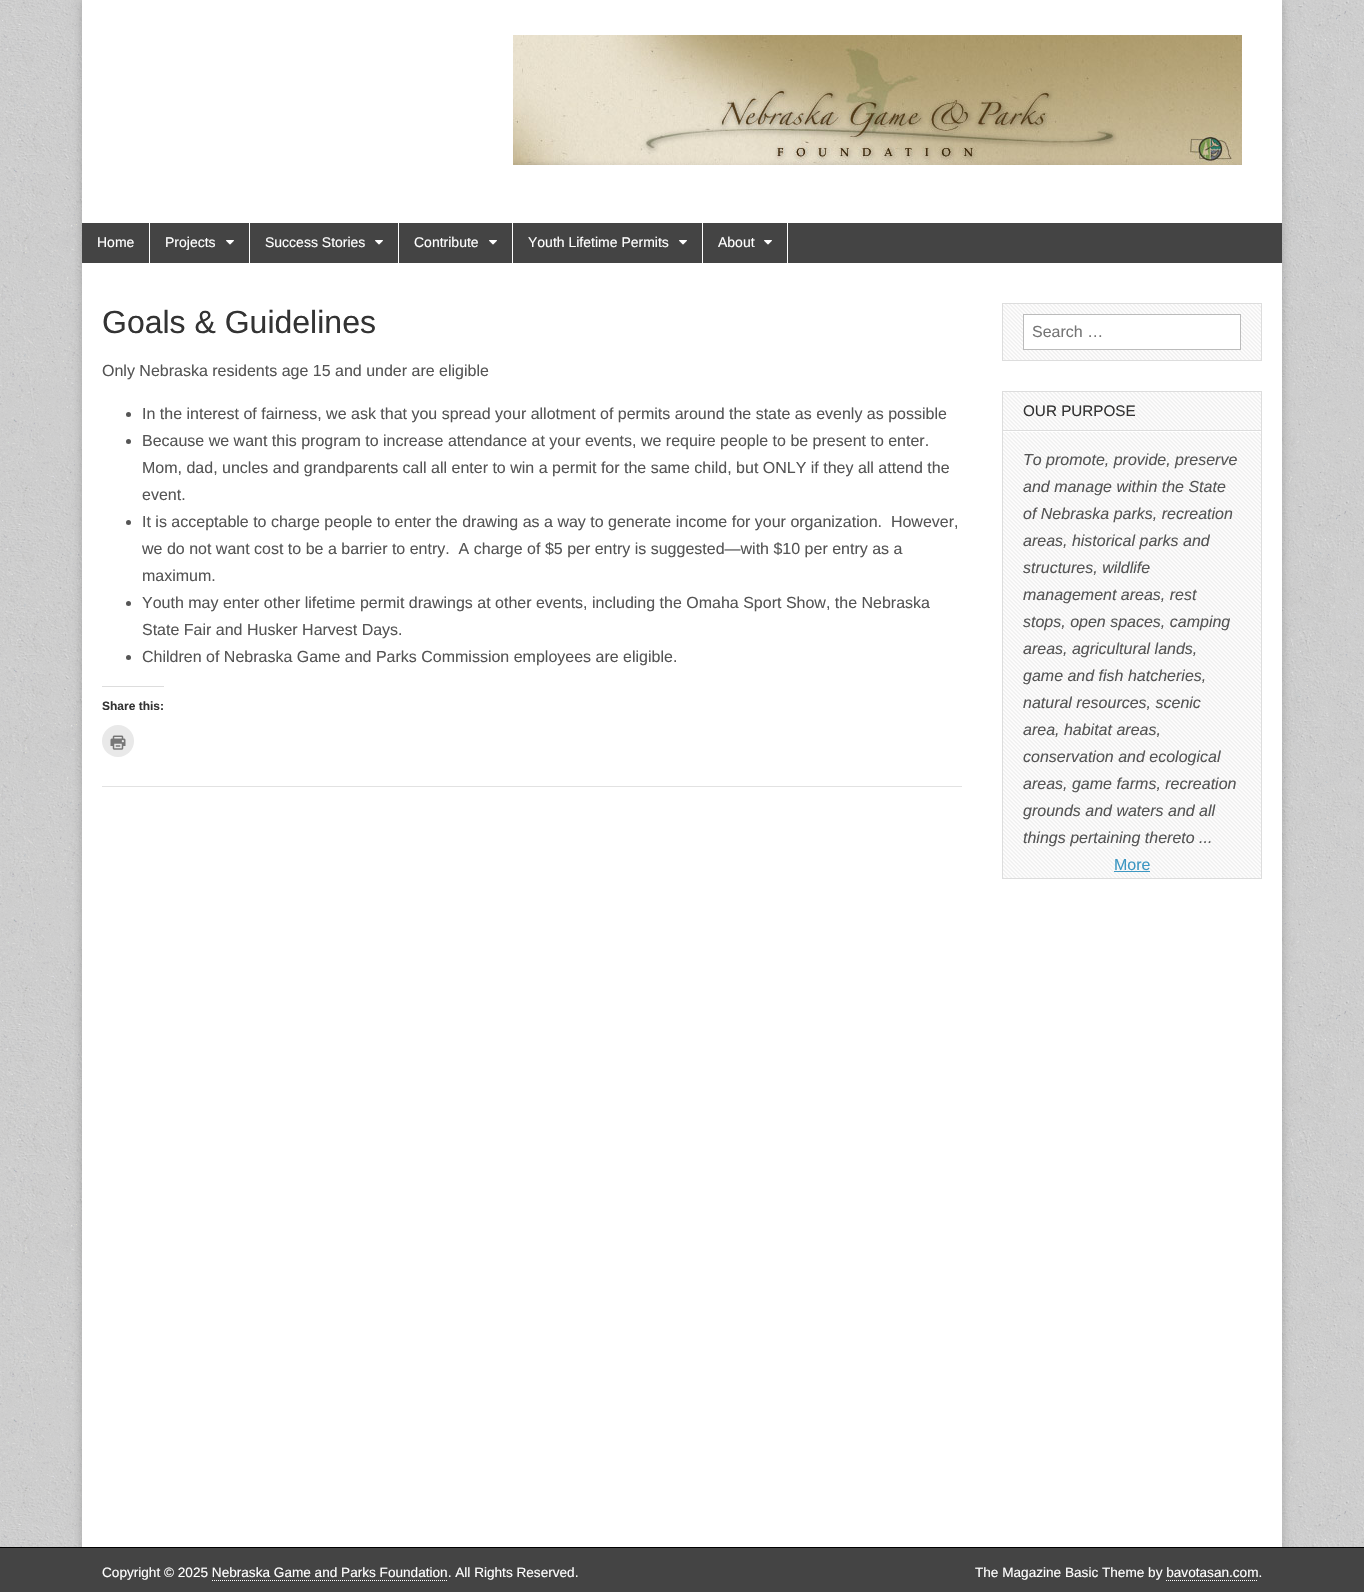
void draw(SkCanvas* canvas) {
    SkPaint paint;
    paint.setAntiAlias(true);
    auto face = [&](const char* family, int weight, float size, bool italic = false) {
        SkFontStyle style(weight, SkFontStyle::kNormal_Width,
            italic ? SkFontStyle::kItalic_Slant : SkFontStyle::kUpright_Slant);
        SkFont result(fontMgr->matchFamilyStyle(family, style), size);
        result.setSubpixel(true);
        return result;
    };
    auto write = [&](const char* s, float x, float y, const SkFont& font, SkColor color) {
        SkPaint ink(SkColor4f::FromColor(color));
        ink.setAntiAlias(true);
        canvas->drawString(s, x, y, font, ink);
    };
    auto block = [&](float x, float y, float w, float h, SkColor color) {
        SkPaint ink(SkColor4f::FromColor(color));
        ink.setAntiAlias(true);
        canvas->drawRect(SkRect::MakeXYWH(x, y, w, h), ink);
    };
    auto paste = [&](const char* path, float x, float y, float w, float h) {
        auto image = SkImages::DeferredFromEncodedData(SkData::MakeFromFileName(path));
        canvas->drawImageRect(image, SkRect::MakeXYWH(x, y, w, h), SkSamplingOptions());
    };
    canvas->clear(SK_ColorWHITE);
    paste("pic1.png", 0, 0, 1364, 1547);
    paint.setColor(SkColorSetARGB(51, 0, 0, 0));
    paint.setMaskFilter(SkMaskFilter::MakeBlur(kNormal_SkBlurStyle, 5));
    canvas->drawRect(SkRect::MakeXYWH(82, 0, 1200, 1592), paint);
    paint.setMaskFilter(nullptr);
    block(82, 0, 1200, 1547, SK_ColorWHITE);
    paste("pic2.png", 513, 35, 729, 130);
    block(82, 223, 1200, 40, SkColorSetRGB(68, 68, 68));
    block(149, 223, 1, 40, SK_ColorWHITE);
    auto kFont1 = face("Liberation Sans", 400, 14);
    write("Home", 97, 247, kFont1, SK_ColorWHITE);
    block(249, 223, 1, 40, SK_ColorWHITE);
    write("Projects", 165, 247, kFont1, SK_ColorWHITE);
    paste("pic3.png", 226, 240, 8, 5);
    block(398, 223, 1, 40, SK_ColorWHITE);
    write("Success Stories", 265, 247, kFont1, SK_ColorWHITE);
    paste("pic3.png", 375, 240, 8, 5);
    block(512, 223, 1, 40, SK_ColorWHITE);
    write("Contribute", 414, 247, kFont1, SK_ColorWHITE);
    paste("pic3.png", 489, 240, 8, 5);
    block(702, 223, 1, 40, SK_ColorWHITE);
    write("Youth Lifetime Permits", 528, 247, kFont1, SK_ColorWHITE);
    paste("pic3.png", 679, 240, 8, 5);
    block(787, 223, 1, 40, SK_ColorWHITE);
    write("About", 718, 247, kFont1, SK_ColorWHITE);
    paste("pic3.png", 764, 240, 8, 5);
    block(102, 786, 860, 1, SkColorSetRGB(226, 226, 226));
    auto kFont2 = face("Liberation Sans", 400, 32);
    write("Goals & Guidelines", 102, 333, kFont2, SkColorSetRGB(51, 51, 51));
    auto kFont3 = face("Liberation Sans", 400, 16);
    write("Only Nebraska residents age 15 and under are eligible", 102, 376, kFont3, SkColorSetRGB(85, 85, 85));
    paint.setColor(SkColorSetRGB(85, 85, 85));
    canvas->drawCircle(128.5f, 414.5f, 2.5f, paint);
    write("In the interest of fairness, we ask that you spread your allotment of permits around the state as evenly as possible", 142, 419, kFont3, SkColorSetRGB(85, 85, 85));
    canvas->drawCircle(128.5f, 441.5f, 2.5f, paint);
    write("Because we want this program to increase attendance at your events, we require people to be present to enter.", 142, 446, kFont3, SkColorSetRGB(85, 85, 85));
    write("Mom, dad, uncles and grandparents call all enter to win a permit for the same child, but ONLY if they all attend the", 142, 473, kFont3, SkColorSetRGB(85, 85, 85));
    write("event.", 142, 500, kFont3, SkColorSetRGB(85, 85, 85));
    canvas->drawCircle(128.5f, 522.5f, 2.5f, paint);
    write("It is acceptable to charge people to enter the drawing as a way to generate income for your organization.  However,", 142, 527, kFont3, SkColorSetRGB(85, 85, 85));
    write("we do not want cost to be a barrier to entry.  A charge of $5 per entry is suggested—with $10 per entry as a", 142, 554, kFont3, SkColorSetRGB(85, 85, 85));
    write("maximum.", 142, 581, kFont3, SkColorSetRGB(85, 85, 85));
    canvas->drawCircle(128.5f, 603.5f, 2.5f, paint);
    write("Youth may enter other lifetime permit drawings at other events, including the Omaha Sport Show, the Nebraska", 142, 608, kFont3, SkColorSetRGB(85, 85, 85));
    write("State Fair and Husker Harvest Days.", 142, 635, kFont3, SkColorSetRGB(85, 85, 85));
    canvas->drawCircle(128.5f, 657.5f, 2.5f, paint);
    write("Children of Nebraska Game and Parks Commission employees are eligible.", 142, 662, kFont3, SkColorSetRGB(85, 85, 85));
    block(102, 686, 62, 1, SkColorSetRGB(221, 221, 221));
    auto kFont4 = face("Liberation Sans", 700, 12);
    write("Share this:", 102, 710, kFont4, SkColorSetRGB(51, 51, 51));
    paint.setColor(SkColorSetRGB(233, 233, 233));
    canvas->drawCircle(118, 741, 16, paint);
    paste("pic4.png", 110, 735, 16, 15);
    paste("pic5.png", 1003, 304, 258, 56);
    paint.setStyle(SkPaint::kStroke_Style);
    paint.setStrokeWidth(1);
    paint.setColor(SkColorSetRGB(221, 221, 221));
    canvas->drawRect(SkRect::MakeXYWH(1002.5f, 303.5f, 259, 57), paint);
    paint.setStyle(SkPaint::kFill_Style);
    paint.setColor(SK_ColorWHITE);
    canvas->drawRect(SkRect::MakeXYWH(1023.5f, 314.5f, 217, 35), paint);
    paint.setStyle(SkPaint::kStroke_Style);
    paint.setColor(SkColorSetRGB(187, 187, 187));
    canvas->drawRect(SkRect::MakeXYWH(1023.5f, 314.5f, 217, 35), paint);
    write("Search …", 1032, 337, kFont3, SkColorSetRGB(117, 117, 117));
    paste("pic6.png", 1003, 392, 258, 486);
    paint.setColor(SkColorSetRGB(221, 221, 221));
    canvas->drawRect(SkRect::MakeXYWH(1002.5f, 391.5f, 259, 487), paint);
    block(1003, 431, 258, 1, SK_ColorWHITE);
    block(1003, 430, 258, 1, SkColorSetRGB(221, 221, 221));
    auto kFont5 = face("Liberation Sans", 400, 15.25f);
    write("OUR PURPOSE", 1023, 416, kFont5, SkColorSetRGB(51, 51, 51));
    auto kFont6 = face("Liberation Sans", 400, 16, true);
    write("To promote, provide, preserve", 1023, 465, kFont6, SkColorSetRGB(85, 85, 85));
    write("and manage within the State", 1023, 492, kFont6, SkColorSetRGB(85, 85, 85));
    write("of Nebraska parks, recreation", 1023, 519, kFont6, SkColorSetRGB(85, 85, 85));
    write("areas, historical parks and", 1023, 546, kFont6, SkColorSetRGB(85, 85, 85));
    write("structures, wildlife", 1023, 573, kFont6, SkColorSetRGB(85, 85, 85));
    write("management areas, rest", 1023, 600, kFont6, SkColorSetRGB(85, 85, 85));
    write("stops, open spaces, camping", 1023, 627, kFont6, SkColorSetRGB(85, 85, 85));
    write("areas, agricultural lands,", 1023, 654, kFont6, SkColorSetRGB(85, 85, 85));
    write("game and fish hatcheries,", 1023, 681, kFont6, SkColorSetRGB(85, 85, 85));
    write("natural resources, scenic", 1023, 708, kFont6, SkColorSetRGB(85, 85, 85));
    write("area, habitat areas,", 1023, 735, kFont6, SkColorSetRGB(85, 85, 85));
    write("conservation and ecological", 1023, 762, kFont6, SkColorSetRGB(85, 85, 85));
    write("areas, game farms, recreation", 1023, 789, kFont6, SkColorSetRGB(85, 85, 85));
    write("grounds and waters and all", 1023, 816, kFont6, SkColorSetRGB(85, 85, 85));
    write("things pertaining thereto ...", 1023, 843, kFont6, SkColorSetRGB(85, 85, 85));
    write("More", 1114, 870, kFont3, SkColorSetRGB(61, 151, 194));
    block(1114, 871, 36, 1, SkColorSetRGB(61, 151, 194));
    block(0, 1548, 1364, 44, SkColorSetRGB(68, 68, 68));
    block(0, 1547, 1364, 1, SK_ColorBLACK);
    auto kFont7 = face("Liberation Sans", 400, 13.6f);
    write("Copyright © 2025 Nebraska Game and Parks Foundation. All Rights Reserved.", 102, 1577, kFont7, SK_ColorWHITE);
    paint.setColor(SK_ColorWHITE);
    paint.setPathEffect(SkDashPathEffect::Make({{1, 1}}, 0));
    canvas->drawPath(SkPathBuilder().moveTo(212, 1580.5f).lineTo(448, 1580.5f).detach(), paint);
    paint.setPathEffect(nullptr);
    write("The Magazine Basic Theme by bavotasan.com.", 975, 1577, kFont7, SK_ColorWHITE);
    paint.setPathEffect(SkDashPathEffect::Make({{1, 1}}, 0));
    canvas->drawPath(SkPathBuilder().moveTo(1166, 1580.5f).lineTo(1258, 1580.5f).detach(), paint);
    paint.setPathEffect(nullptr);
}
